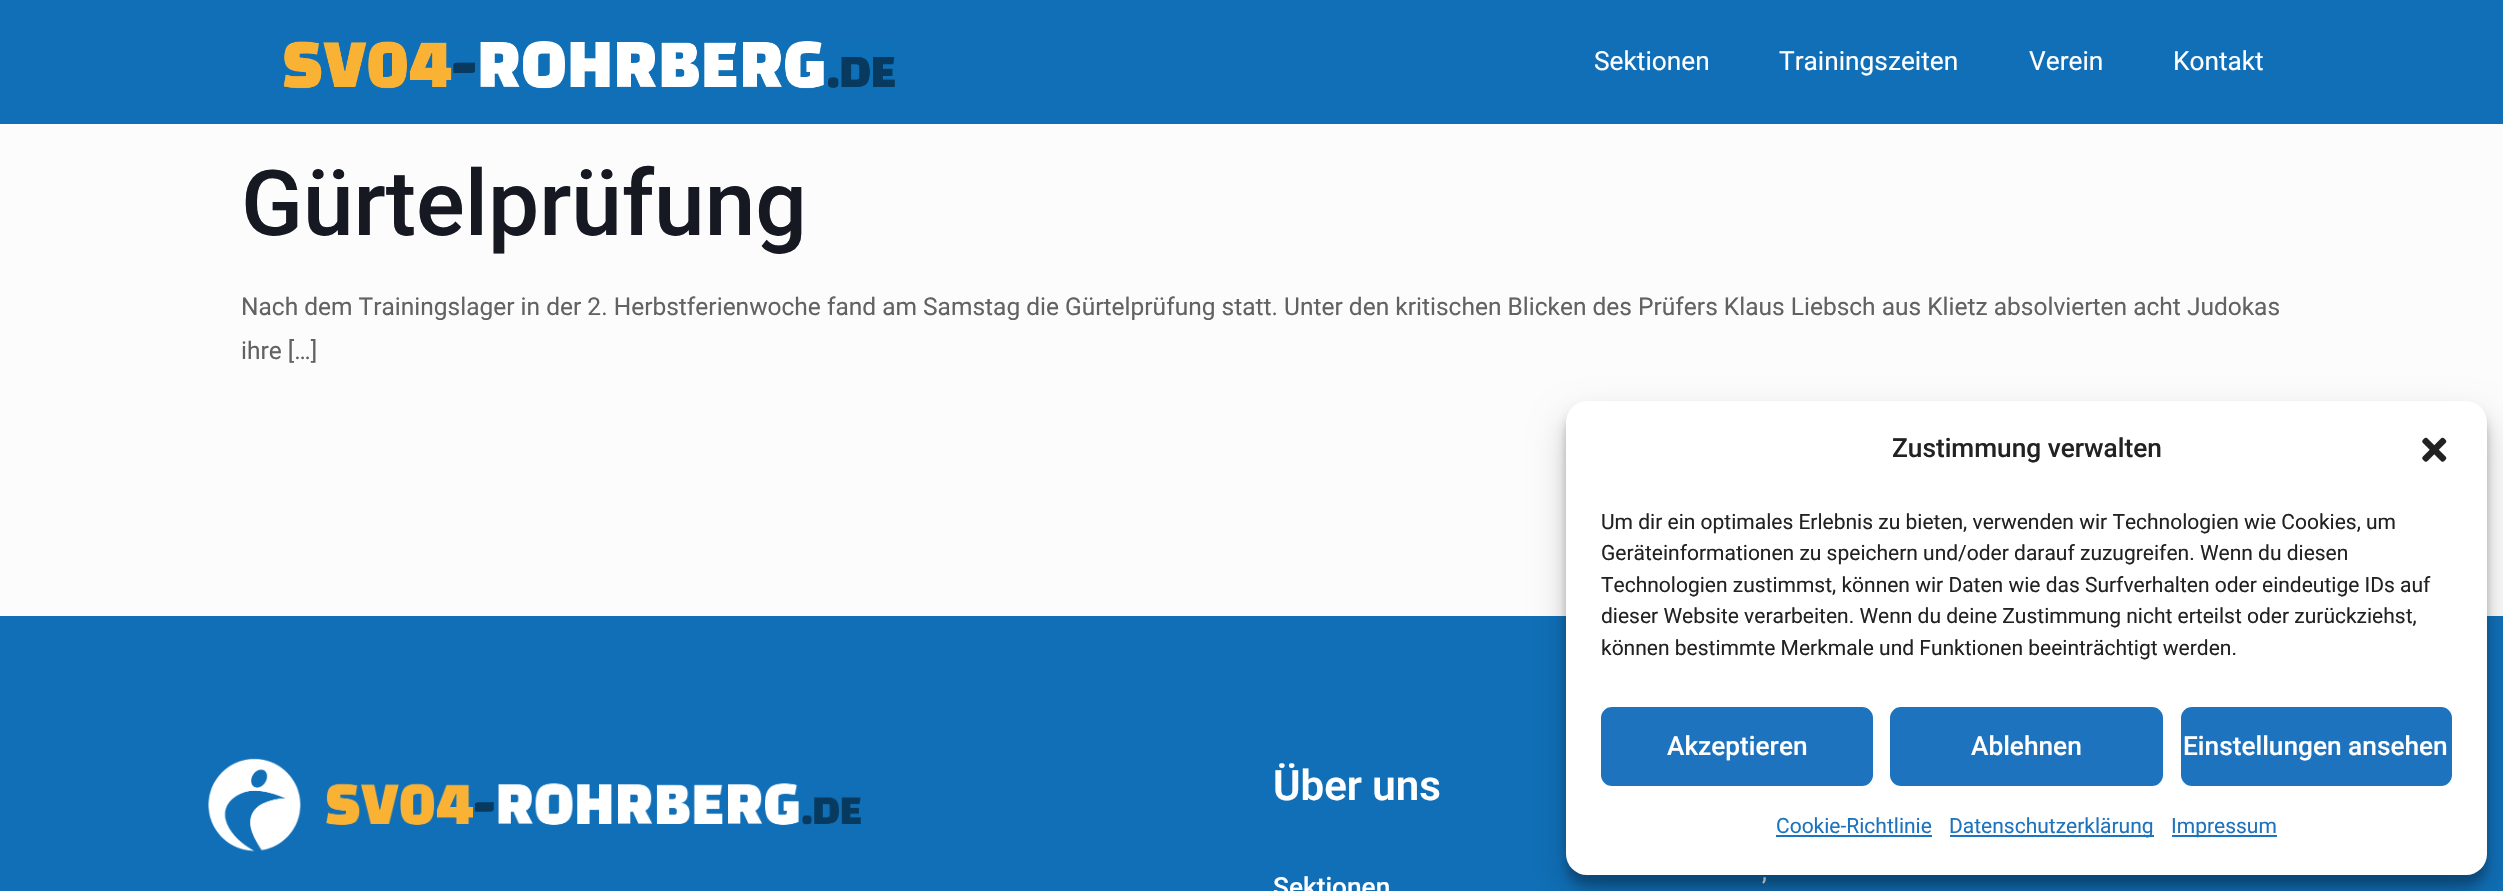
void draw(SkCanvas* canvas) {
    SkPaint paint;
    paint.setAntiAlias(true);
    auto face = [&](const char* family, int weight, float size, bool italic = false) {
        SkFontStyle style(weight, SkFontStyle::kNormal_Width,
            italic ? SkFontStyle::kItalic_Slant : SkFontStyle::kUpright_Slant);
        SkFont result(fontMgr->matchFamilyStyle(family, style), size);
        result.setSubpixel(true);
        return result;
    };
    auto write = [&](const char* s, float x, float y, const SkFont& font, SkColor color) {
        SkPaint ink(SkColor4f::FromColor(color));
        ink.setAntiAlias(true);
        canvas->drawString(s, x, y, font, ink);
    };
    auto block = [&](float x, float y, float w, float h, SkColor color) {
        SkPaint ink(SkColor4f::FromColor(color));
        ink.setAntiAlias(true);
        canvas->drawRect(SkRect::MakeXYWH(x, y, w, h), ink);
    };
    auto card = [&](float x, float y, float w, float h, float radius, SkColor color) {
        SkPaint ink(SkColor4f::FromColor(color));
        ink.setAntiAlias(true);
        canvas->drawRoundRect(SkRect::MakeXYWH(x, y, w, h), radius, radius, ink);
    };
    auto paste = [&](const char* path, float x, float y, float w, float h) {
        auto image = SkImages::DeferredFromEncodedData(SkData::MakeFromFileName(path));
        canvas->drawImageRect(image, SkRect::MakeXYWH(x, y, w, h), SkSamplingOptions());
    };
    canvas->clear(SkColorSetRGB(252, 252, 252));
    block(0, 0, 2503, 124, SkColorSetRGB(16, 111, 183));
    paste("pic1.png", 283, 41, 612, 48);
    auto kFont1 = face("Roboto", 400, 26.25f);
    write("Sektionen", 1594, 70, kFont1, SK_ColorWHITE);
    write("Trainingszeiten", 1779, 70, kFont1, SK_ColorWHITE);
    write("Verein", 2029, 70, kFont1, SK_ColorWHITE);
    write("Kontakt", 2173, 70, kFont1, SK_ColorWHITE);
    auto kFont2 = face("Roboto", 500, 91);
    write("Gürtelprüfung", 241, 235, kFont2, SkColorSetRGB(22, 25, 34));
    auto kFont3 = face("Roboto", 400, 24.5f);
    write("Nach dem Trainingslager in der 2. Herbstferienwoche fand am Samstag die Gürtelprüfung statt. Unter den kritischen Blicken des Prüfers Klaus Liebsch aus Klietz absolvierten acht Judokas", 241, 315, kFont3, SkColorSetRGB(98, 98, 98));
    write("ihre […]", 241, 359, kFont3, SkColorSetRGB(98, 98, 98));
    block(0, 616, 2503, 275, SkColorSetRGB(16, 111, 183));
    paste("pic2.png", 208, 758, 653, 94);
    auto kFont4 = face("Roboto", 600, 42);
    write("Über uns", 1273, 800, kFont4, SK_ColorWHITE);
    auto kFont5 = face("Roboto", 500, 26.25f);
    write("Sektionen", 1273, 896, kFont5, SK_ColorWHITE);
    write(",", 1762, 880, kFont3, SK_ColorWHITE);
    paint.setColor(SkColorSetARGB(59, 0, 0, 0));
    paint.setMaskFilter(SkMaskFilter::MakeBlur(kNormal_SkBlurStyle, 5));
    canvas->drawRoundRect(SkRect::MakeXYWH(1566, 411, 921, 475), 21, 21, paint);
    paint.setMaskFilter(nullptr);
    paint.setColor(SkColorSetARGB(48, 0, 0, 0));
    paint.setMaskFilter(SkMaskFilter::MakeBlur(kNormal_SkBlurStyle, 17.5f));
    canvas->drawRoundRect(SkRect::MakeXYWH(1566, 418, 921, 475), 21, 21, paint);
    paint.setMaskFilter(nullptr);
    card(1566, 401, 921, 474, 21, SK_ColorWHITE);
    write("Zustimmung verwalten", 1892, 457, kFont5, SkColorSetRGB(34, 34, 34));
    paste("pic3.png", 2422, 437, 25, 25);
    auto kFont6 = face("Roboto", 400, 21);
    write("Um dir ein optimales Erlebnis zu bieten, verwenden wir Technologien wie Cookies, um", 1601, 529, kFont6, SkColorSetRGB(34, 34, 34));
    write("Geräteinformationen zu speichern und/oder darauf zuzugreifen. Wenn du diesen", 1601, 560, kFont6, SkColorSetRGB(34, 34, 34));
    write("Technologien zustimmst, können wir Daten wie das Surfverhalten oder eindeutige IDs auf", 1601, 592, kFont6, SkColorSetRGB(34, 34, 34));
    write("dieser Website verarbeiten. Wenn du deine Zustimmung nicht erteilst oder zurückziehst,", 1601, 623, kFont6, SkColorSetRGB(34, 34, 34));
    write("können bestimmte Merkmale und Funktionen beeinträchtigt werden.", 1601, 655, kFont6, SkColorSetRGB(34, 34, 34));
    paint.setColor(SkColorSetRGB(30, 115, 190));
    canvas->drawRoundRect(SkRect::MakeXYWH(1602, 708, 270, 77), 10, 10, paint);
    paint.setStyle(SkPaint::kStroke_Style);
    paint.setStrokeWidth(2);
    canvas->drawRoundRect(SkRect::MakeXYWH(1602, 708, 270, 77), 10, 10, paint);
    write("Akzeptieren", 1667, 755, kFont5, SK_ColorWHITE);
    paint.setStyle(SkPaint::kFill_Style);
    canvas->drawRoundRect(SkRect::MakeXYWH(1891, 708, 271, 77), 10, 10, paint);
    paint.setStyle(SkPaint::kStroke_Style);
    canvas->drawRoundRect(SkRect::MakeXYWH(1891, 708, 271, 77), 10, 10, paint);
    write("Ablehnen", 1971, 755, kFont5, SK_ColorWHITE);
    paint.setStyle(SkPaint::kFill_Style);
    canvas->drawRoundRect(SkRect::MakeXYWH(2182, 708, 269, 77), 10, 10, paint);
    paint.setStyle(SkPaint::kStroke_Style);
    canvas->drawRoundRect(SkRect::MakeXYWH(2182, 708, 269, 77), 10, 10, paint);
    write("Einstellungen ansehen", 2183, 755, kFont5, SK_ColorWHITE);
    write("Cookie-Richtlinie", 1776, 833, kFont6, SkColorSetRGB(30, 115, 190));
    block(1776, 835, 156, 2, SkColorSetRGB(30, 115, 190));
    block(1950, 835, 204, 2, SkColorSetRGB(30, 115, 190));
    write("Datenschutzerklärung", 1949, 833, kFont6, SkColorSetRGB(30, 115, 190));
    block(2172, 835, 105, 2, SkColorSetRGB(30, 115, 190));
    write("Impressum", 2171, 833, kFont6, SkColorSetRGB(30, 115, 190));
}
